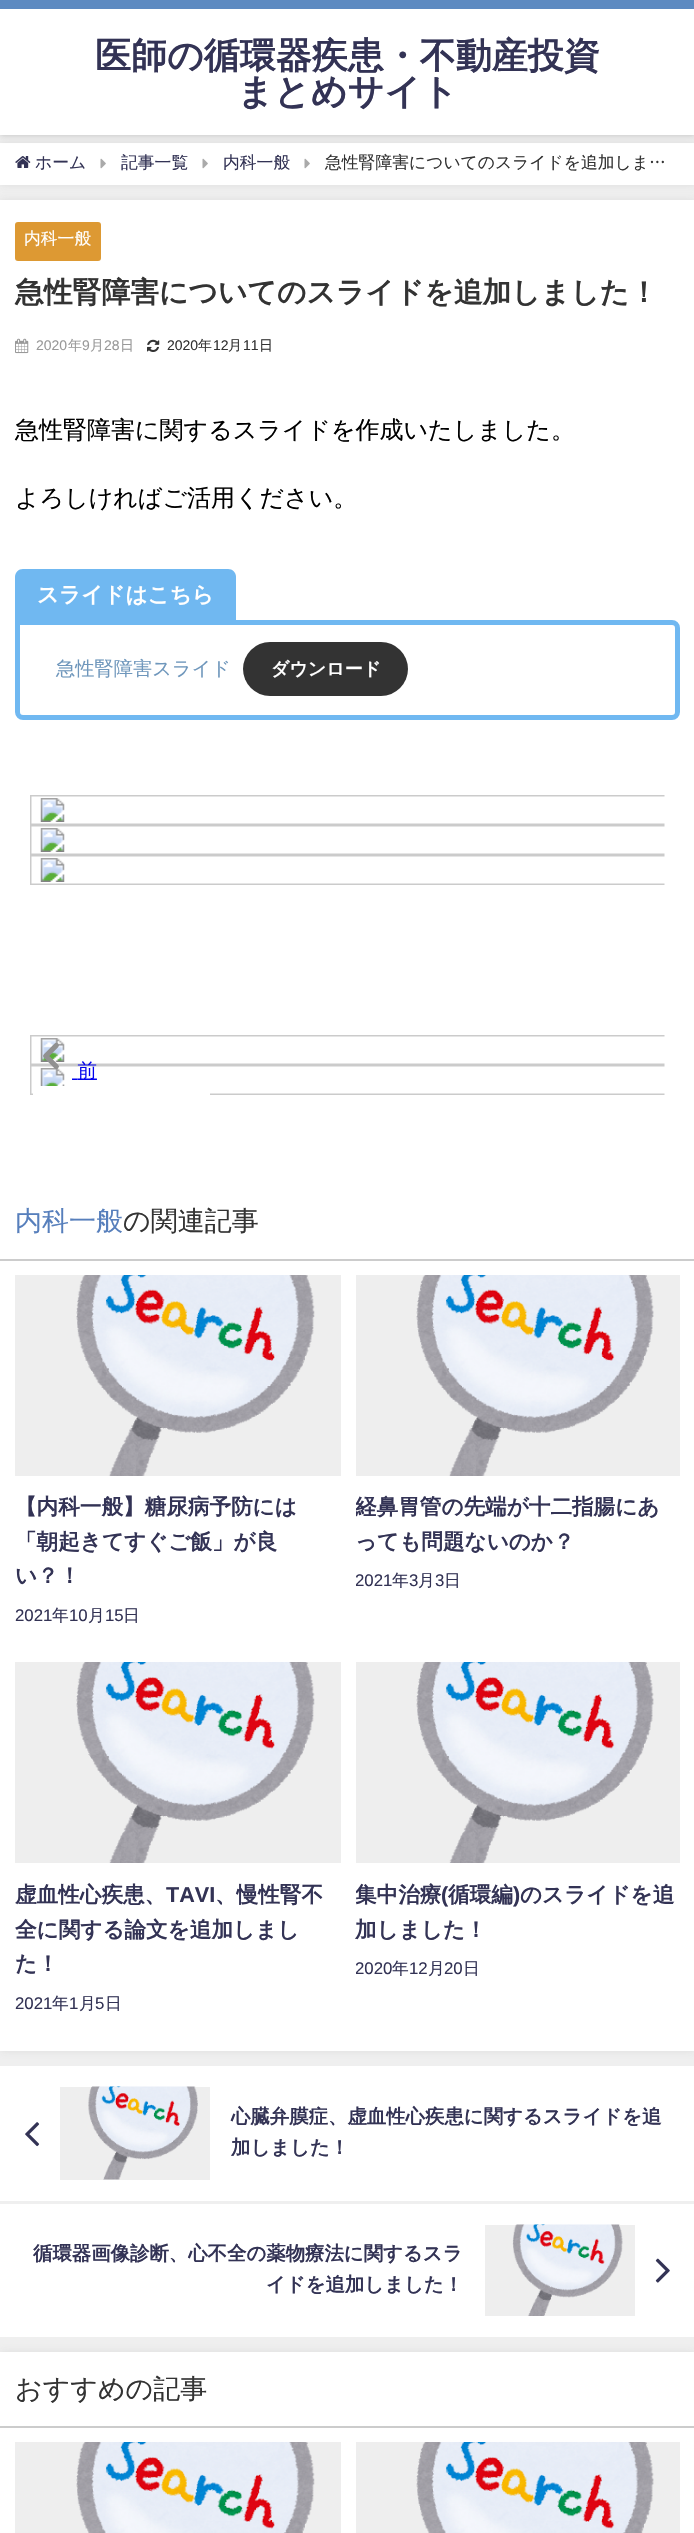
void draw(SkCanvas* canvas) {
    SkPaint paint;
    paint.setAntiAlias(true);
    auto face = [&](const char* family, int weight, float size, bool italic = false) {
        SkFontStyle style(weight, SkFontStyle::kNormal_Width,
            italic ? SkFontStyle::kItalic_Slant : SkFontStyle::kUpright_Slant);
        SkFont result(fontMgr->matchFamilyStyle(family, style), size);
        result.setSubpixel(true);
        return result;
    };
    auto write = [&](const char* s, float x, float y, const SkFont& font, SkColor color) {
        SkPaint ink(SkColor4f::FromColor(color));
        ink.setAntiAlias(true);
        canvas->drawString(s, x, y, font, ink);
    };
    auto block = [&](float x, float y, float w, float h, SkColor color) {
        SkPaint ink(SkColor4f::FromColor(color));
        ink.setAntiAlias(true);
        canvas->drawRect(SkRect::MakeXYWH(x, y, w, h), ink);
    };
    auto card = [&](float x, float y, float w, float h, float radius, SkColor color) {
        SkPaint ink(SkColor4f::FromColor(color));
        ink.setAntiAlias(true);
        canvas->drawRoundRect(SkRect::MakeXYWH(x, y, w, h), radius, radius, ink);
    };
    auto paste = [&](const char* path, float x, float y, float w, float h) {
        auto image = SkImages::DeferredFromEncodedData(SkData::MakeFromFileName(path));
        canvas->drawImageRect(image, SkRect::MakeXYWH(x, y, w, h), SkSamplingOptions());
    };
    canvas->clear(SkColorSetRGB(239, 239, 239));
    paint.setColor(SkColorSetARGB(51, 150, 150, 150));
    paint.setMaskFilter(SkMaskFilter::MakeBlur(kNormal_SkBlurStyle, 4));
    canvas->drawRect(SkRect::MakeXYWH(0, 143, 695, 42), paint);
    paint.setMaskFilter(nullptr);
    block(0, 143, 694, 42, SK_ColorWHITE);
    paint.setColor(SkColorSetARGB(51, 0, 0, 0));
    paint.setMaskFilter(SkMaskFilter::MakeBlur(kNormal_SkBlurStyle, 3));
    canvas->drawRect(SkRect::MakeXYWH(0, 0, 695, 135), paint);
    paint.setMaskFilter(nullptr);
    block(0, 9, 694, 126, SK_ColorWHITE);
    block(0, 0, 694, 9, SkColorSetRGB(93, 138, 193));
    auto kFont1 = face("WenQuanYi Zen Hei", 700, 36);
    write("医師の循環器疾患・不動産投資", 95, 68, kFont1, SkColorSetRGB(51, 51, 85));
    write("まとめサイト", 237, 104, kFont1, SkColorSetRGB(51, 51, 85));
    paste("pic1.png", 15, 156, 16, 12);
    auto kFont2 = face("WenQuanYi Zen Hei", 500, 16.8f);
    write("ホーム", 35, 168, kFont2, SkColorSetRGB(51, 51, 85));
    paste("pic2.png", 100, 158, 6, 11);
    write("記事一覧", 121, 168, kFont2, SkColorSetRGB(51, 51, 85));
    paste("pic2.png", 202, 158, 6, 11);
    write("内科一般", 223, 168, kFont2, SkColorSetRGB(51, 51, 85));
    paste("pic2.png", 304, 158, 6, 11);
    write("急性腎障害についてのスライドを追加しま…", 325, 168, kFont2, SkColorSetRGB(51, 51, 51));
    paint.setColor(SkColorSetARGB(51, 150, 150, 150));
    paint.setMaskFilter(SkMaskFilter::MakeBlur(kNormal_SkBlurStyle, 4));
    canvas->drawRect(SkRect::MakeXYWH(0, 200, 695, 1851), paint);
    paint.setMaskFilter(nullptr);
    block(0, 200, 694, 1851, SK_ColorWHITE);
    card(15, 222, 86, 39, 3, SkColorSetRGB(221, 153, 51));
    write("内科一般", 24, 244, kFont2, SK_ColorWHITE);
    auto kFont3 = face("WenQuanYi Zen Hei", 700, 28.8f);
    write("急性腎障害についてのスライドを追加しました！", 15, 302, kFont3, SkColorSetRGB(51, 51, 51));
    paste("pic3.png", 15, 338, 14, 16);
    auto kFont4 = face("Liberation Sans", 400, 14);
    write("2020", 36, 350, kFont4, SkColorSetRGB(153, 153, 153));
    auto kFont5 = face("WenQuanYi Zen Hei", 500, 14);
    write("年", 68, 350, kFont5, SkColorSetRGB(153, 153, 153));
    write("9", 82, 350, kFont4, SkColorSetRGB(153, 153, 153));
    write("月", 90, 350, kFont5, SkColorSetRGB(153, 153, 153));
    write("28", 104, 350, kFont4, SkColorSetRGB(153, 153, 153));
    write("日", 120, 350, kFont5, SkColorSetRGB(153, 153, 153));
    paste("pic4.png", 147, 339, 13, 13);
    write("2020", 167, 350, kFont4, SkColorSetRGB(51, 51, 51));
    write("年", 198, 350, kFont5, SkColorSetRGB(51, 51, 51));
    write("12", 213, 350, kFont4, SkColorSetRGB(51, 51, 51));
    write("月", 228, 350, kFont5, SkColorSetRGB(51, 51, 51));
    write("11", 243, 350, kFont4, SkColorSetRGB(51, 51, 51));
    write("日", 259, 350, kFont5, SkColorSetRGB(51, 51, 51));
    auto kFont6 = face("WenQuanYi Zen Hei", 500, 24);
    write("急性腎障害に関するスライドを作成いたしました。", 15, 438, kFont6, SK_ColorBLACK);
    write("よろしければご活用ください。", 15, 506, kFont6, SK_ColorBLACK);
    paint.setColor(SkColorSetRGB(112, 184, 241));
    canvas->drawPath(SkPathBuilder().moveTo(23, 569).lineTo(228, 569).cubicTo(232.5f, 569, 236, 572.5f, 236, 577).lineTo(236, 621).lineTo(15, 621).lineTo(15, 577).cubicTo(15, 572.5f, 18.5f, 569, 23, 569).close().detach(), paint);
    auto kFont7 = face("WenQuanYi Zen Hei", 700, 21.6f);
    write("スライドはこちら", 37, 602, kFont7, SK_ColorWHITE);
    paint.setColor(SK_ColorWHITE);
    canvas->drawPath(SkPathBuilder().moveTo(17.5f, 622.5f).lineTo(672, 622.5f).cubicTo(675, 622.5f, 677.5f, 625, 677.5f, 628).lineTo(677.5f, 712).cubicTo(677.5f, 715, 675, 717.5f, 672, 717.5f).lineTo(23, 717.5f).cubicTo(20, 717.5f, 17.5f, 715, 17.5f, 712).close().detach(), paint);
    paint.setStyle(SkPaint::kStroke_Style);
    paint.setStrokeWidth(5);
    paint.setColor(SkColorSetRGB(112, 184, 241));
    canvas->drawPath(SkPathBuilder().moveTo(17.5f, 622.5f).lineTo(672, 622.5f).cubicTo(675, 622.5f, 677.5f, 625, 677.5f, 628).lineTo(677.5f, 712).cubicTo(677.5f, 715, 675, 717.5f, 672, 717.5f).lineTo(23, 717.5f).cubicTo(20, 717.5f, 17.5f, 715, 17.5f, 712).close().detach(), paint);
    auto kFont8 = face("WenQuanYi Zen Hei", 500, 19.25f);
    write("急性腎障害スライド", 56, 675, kFont8, SkColorSetRGB(111, 151, 188));
    card(243, 642, 165, 54, 27, SkColorSetRGB(51, 51, 51));
    auto kFont9 = face("WenQuanYi Zen Hei", 700, 18);
    write("ダウンロード", 271, 675, kFont9, SK_ColorWHITE);
    paste("pic5.png", 30, 795, 635, 300);
    block(0, 1259, 694, 2, SkColorSetRGB(204, 204, 204));
    auto kFont10 = face("WenQuanYi Zen Hei", 500, 27);
    write("内科一般", 15, 1230, kFont10, SkColorSetRGB(87, 127, 188));
    write("の関連記事", 123, 1230, kFont10, SkColorSetRGB(51, 51, 51));
    block(15, 1275, 326, 201, SkColorSetRGB(238, 238, 238));
    paste("pic6.png", 76, 1275, 239, 201);
    write("【内科一般】糖尿病予防には", 15, 1514, kFont7, SkColorSetRGB(51, 51, 85));
    write("「朝起きてすぐご飯」が良", 15, 1549, kFont7, SkColorSetRGB(51, 51, 85));
    write("い？！", 15, 1583, kFont7, SkColorSetRGB(51, 51, 85));
    auto kFont11 = face("Liberation Sans", 400, 16.8f);
    write("2021", 15, 1621, kFont11, SkColorSetRGB(51, 51, 85));
    write("年", 52, 1621, kFont2, SkColorSetRGB(51, 51, 85));
    write("10", 69, 1621, kFont11, SkColorSetRGB(51, 51, 85));
    write("月", 88, 1621, kFont2, SkColorSetRGB(51, 51, 85));
    write("15", 105, 1621, kFont11, SkColorSetRGB(51, 51, 85));
    write("日", 123, 1621, kFont2, SkColorSetRGB(51, 51, 85));
    block(356, 1275, 324, 201, SkColorSetRGB(238, 238, 238));
    paste("pic7.png", 416, 1275, 238, 201);
    canvas->save();
    canvas->clipRect(SkRect::MakeXYWH(356, 1491, 324, 69));
    write("経鼻胃管の先端が十二指腸にあ", 355, 1514, kFont7, SkColorSetRGB(51, 51, 85));
    canvas->restore();
    write("っても問題ないのか？", 355, 1549, kFont7, SkColorSetRGB(51, 51, 85));
    canvas->save();
    canvas->clipRect(SkRect::MakeXYWH(356, 1491, 324, 107));
    write("2021", 355, 1586, kFont11, SkColorSetRGB(51, 51, 85));
    canvas->restore();
    write("年", 392, 1586, kFont2, SkColorSetRGB(51, 51, 85));
    write("3", 409, 1586, kFont11, SkColorSetRGB(51, 51, 85));
    write("月", 418, 1586, kFont2, SkColorSetRGB(51, 51, 85));
    write("3", 435, 1586, kFont11, SkColorSetRGB(51, 51, 85));
    write("日", 444, 1586, kFont2, SkColorSetRGB(51, 51, 85));
    block(15, 1662, 326, 201, SkColorSetRGB(238, 238, 238));
    paste("pic8.png", 76, 1662, 239, 201);
    write("虚血性心疾患、", 15, 1902, kFont7, SkColorSetRGB(51, 51, 85));
    auto kFont12 = face("Liberation Sans", 700, 21.6f);
    write("TAVI", 166, 1902, kFont12, SkColorSetRGB(51, 51, 85));
    write("、慢性腎不", 215, 1902, kFont7, SkColorSetRGB(51, 51, 85));
    write("全に関する論文を追加しまし", 15, 1937, kFont7, SkColorSetRGB(51, 51, 85));
    write("た！", 15, 1971, kFont7, SkColorSetRGB(51, 51, 85));
    write("2021", 15, 2009, kFont11, SkColorSetRGB(51, 51, 85));
    write("年", 52, 2009, kFont2, SkColorSetRGB(51, 51, 85));
    write("1", 69, 2009, kFont11, SkColorSetRGB(51, 51, 85));
    write("月", 79, 2009, kFont2, SkColorSetRGB(51, 51, 85));
    write("5", 95, 2009, kFont11, SkColorSetRGB(51, 51, 85));
    write("日", 105, 2009, kFont2, SkColorSetRGB(51, 51, 85));
    block(356, 1662, 324, 201, SkColorSetRGB(238, 238, 238));
    paste("pic9.png", 416, 1662, 238, 201);
    canvas->save();
    canvas->clipRect(SkRect::MakeXYWH(356, 1878, 324, 69));
    write("集中治療", 355, 1902, kFont7, SkColorSetRGB(51, 51, 85));
    canvas->restore();
    write("(", 441, 1902, kFont12, SkColorSetRGB(51, 51, 85));
    write("循環編", 448, 1902, kFont7, SkColorSetRGB(51, 51, 85));
    write(")", 513, 1902, kFont12, SkColorSetRGB(51, 51, 85));
    write("のスライドを追", 520, 1902, kFont7, SkColorSetRGB(51, 51, 85));
    write("加しました！", 355, 1937, kFont7, SkColorSetRGB(51, 51, 85));
    canvas->save();
    canvas->clipRect(SkRect::MakeXYWH(356, 1878, 324, 108));
    write("2020", 355, 1974, kFont11, SkColorSetRGB(51, 51, 85));
    canvas->restore();
    write("年", 392, 1974, kFont2, SkColorSetRGB(51, 51, 85));
    write("12", 409, 1974, kFont11, SkColorSetRGB(51, 51, 85));
    write("月", 428, 1974, kFont2, SkColorSetRGB(51, 51, 85));
    write("20", 444, 1974, kFont11, SkColorSetRGB(51, 51, 85));
    write("日", 463, 1974, kFont2, SkColorSetRGB(51, 51, 85));
    block(0, 2066, 694, 135, SK_ColorWHITE);
    paste("pic10.png", 25, 2122, 15, 25);
    block(60, 2087, 150, 93, SkColorSetRGB(238, 238, 238));
    paste("pic11.png", 88, 2086, 110, 94);
    auto kFont13 = face("WenQuanYi Zen Hei", 700, 19.4f);
    write("心臓弁膜症、虚血性心疾患に関するスライドを追", 231, 2123, kFont13, SkColorSetRGB(51, 51, 85));
    write("加しました！", 231, 2154, kFont13, SkColorSetRGB(51, 51, 85));
    block(0, 2204, 694, 133, SK_ColorWHITE);
    write("循環器画像診断、心不全の薬物療法に関するスラ", 33, 2260, kFont13, SkColorSetRGB(51, 51, 85));
    write("イドを追加しました！", 266, 2291, kFont13, SkColorSetRGB(51, 51, 85));
    block(485, 2225, 150, 91, SkColorSetRGB(238, 238, 238));
    paste("pic12.png", 512, 2224, 111, 92);
    paste("pic13.png", 655, 2258, 15, 25);
    paint.setStyle(SkPaint::kFill_Style);
    paint.setColor(SkColorSetARGB(51, 150, 150, 150));
    paint.setMaskFilter(SkMaskFilter::MakeBlur(kNormal_SkBlurStyle, 4));
    canvas->drawRect(SkRect::MakeXYWH(0, 2352, 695, 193), paint);
    paint.setMaskFilter(nullptr);
    block(0, 2352, 694, 181, SK_ColorWHITE);
    block(0, 2426, 694, 2, SkColorSetRGB(204, 204, 204));
    write("おすすめの記事", 15, 2398, kFont10, SkColorSetRGB(51, 51, 51));
    block(15, 2442, 326, 91, SkColorSetRGB(238, 238, 238));
    paste("pic14.png", 76, 2442, 239, 91);
    block(356, 2442, 324, 91, SkColorSetRGB(238, 238, 238));
    paste("pic15.png", 416, 2442, 238, 91);
}
